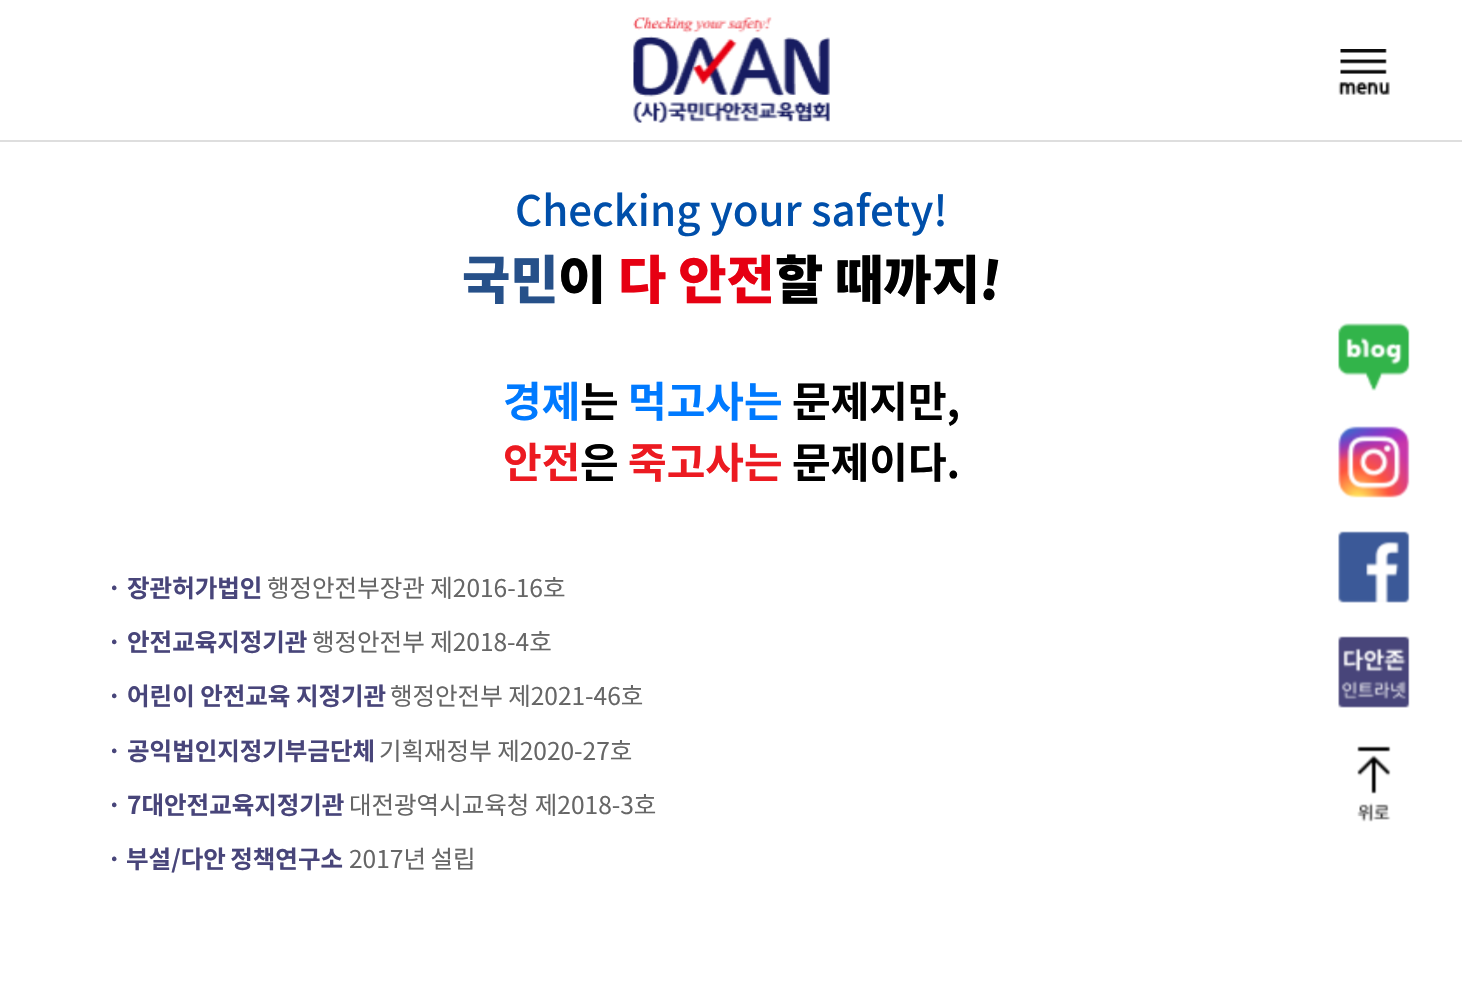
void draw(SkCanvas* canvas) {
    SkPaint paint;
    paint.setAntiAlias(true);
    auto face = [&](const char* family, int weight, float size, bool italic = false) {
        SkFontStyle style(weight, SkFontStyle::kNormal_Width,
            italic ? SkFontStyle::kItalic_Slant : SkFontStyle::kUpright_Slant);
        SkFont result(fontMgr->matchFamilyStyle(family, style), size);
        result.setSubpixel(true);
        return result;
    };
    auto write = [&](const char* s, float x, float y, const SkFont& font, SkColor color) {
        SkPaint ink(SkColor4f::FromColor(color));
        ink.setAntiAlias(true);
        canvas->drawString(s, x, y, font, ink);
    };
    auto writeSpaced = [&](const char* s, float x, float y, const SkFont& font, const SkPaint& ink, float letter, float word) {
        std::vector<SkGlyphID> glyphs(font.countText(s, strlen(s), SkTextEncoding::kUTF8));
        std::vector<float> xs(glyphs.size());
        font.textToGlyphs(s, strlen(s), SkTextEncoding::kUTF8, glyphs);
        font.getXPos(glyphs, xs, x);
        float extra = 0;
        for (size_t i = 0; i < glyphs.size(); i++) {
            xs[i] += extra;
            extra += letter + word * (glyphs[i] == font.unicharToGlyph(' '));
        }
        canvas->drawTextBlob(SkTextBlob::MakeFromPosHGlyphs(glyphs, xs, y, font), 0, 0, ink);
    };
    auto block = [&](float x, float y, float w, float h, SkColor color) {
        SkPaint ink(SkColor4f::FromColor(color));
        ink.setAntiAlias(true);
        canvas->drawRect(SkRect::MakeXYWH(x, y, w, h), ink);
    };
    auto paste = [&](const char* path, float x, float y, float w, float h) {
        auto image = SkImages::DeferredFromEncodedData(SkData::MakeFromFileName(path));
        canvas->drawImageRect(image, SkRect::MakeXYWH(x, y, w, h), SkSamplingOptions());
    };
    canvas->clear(SK_ColorWHITE);
    block(0, 140, 1462, 2, SkColorSetRGB(222, 222, 222));
    paste("pic1.png", 633, 17, 197, 106);
    paste("pic2.png", 1338, 49, 52, 46);
    auto kFont1 = face("Noto Sans KR", 500, 42);
    write("Checking your safety!", 515, 226, kFont1, SkColorSetRGB(0, 79, 170));
    auto kFont2 = face("Noto Sans KR", 900, 52.5f);
    write("국민", 462, 299, kFont2, SkColorSetRGB(38, 80, 137));
    write("이", 558, 299, kFont2, SK_ColorBLACK);
    write("다 안전", 618, 299, kFont2, SkColorSetRGB(230, 0, 18));
    write("할 때까지", 775, 299, kFont2, SK_ColorBLACK);
    canvas->save();
    canvas->rotate(7.5f, 978, 298);
    write("!", 978, 298, kFont2, SK_ColorBLACK);
    canvas->restore();
    auto kFont3 = face("Noto Sans KR", 700, 42);
    write("경제", 503, 417, kFont3, SkColorSetRGB(0, 122, 255));
    write("는", 580, 417, kFont3, SK_ColorBLACK);
    write("먹고사는", 628, 417, kFont3, SkColorSetRGB(0, 122, 255));
    write("문제지만,", 792, 417, kFont3, SK_ColorBLACK);
    write("안전", 503, 478, kFont3, SkColorSetRGB(236, 26, 33));
    write("은", 580, 478, kFont3, SK_ColorBLACK);
    write("죽고사는", 628, 478, kFont3, SkColorSetRGB(236, 26, 33));
    write("문제이다.", 792, 478, kFont3, SK_ColorBLACK);
    auto kFont4 = face("Noto Sans KR", 700, 24.5f);
    write("· 장관허가법인", 107, 597, kFont4, SkColorSetRGB(72, 69, 122));
    auto kFont5 = face("Noto Sans KR", 400, 24.5f);
    write("행정안전부장관 제2016-16호", 267, 597, kFont5, SkColorSetRGB(102, 102, 102));
    write("· 안전교육지정기관", 107, 651, kFont4, SkColorSetRGB(72, 69, 122));
    write("행정안전부 제2018-4호", 312, 651, kFont5, SkColorSetRGB(102, 102, 102));
    write("· 어린이 안전교육 지정기관", 107, 705, kFont4, SkColorSetRGB(72, 69, 122));
    write("행정안전부 제2021-46호", 390, 705, kFont5, SkColorSetRGB(102, 102, 102));
    write("· 공익법인지정기부금단체", 107, 760, kFont4, SkColorSetRGB(72, 69, 122));
    write("기획재정부 제2020-27호", 379, 760, kFont5, SkColorSetRGB(102, 102, 102));
    write("· 7대안전교육지정기관", 107, 814, kFont4, SkColorSetRGB(72, 69, 122));
    write("대전광역시교육청 제2018-3호", 349, 814, kFont5, SkColorSetRGB(102, 102, 102));
    paint.setColor(SkColorSetRGB(72, 69, 122));
    writeSpaced("· 부설/다안 정책연구소", 107, 868, kFont4, paint, 0, -1);
    paint.setColor(SkColorSetRGB(102, 102, 102));
    writeSpaced("2017년 설립", 349, 868, kFont5, paint, 0, -1);
    paste("pic3.png", 1338, 323, 72, 68);
    paste("pic4.png", 1338, 426, 72, 72);
    paste("pic5.png", 1338, 531, 72, 72);
    paste("pic6.png", 1338, 636, 72, 72);
    paste("pic7.png", 1357, 746, 34, 76);
}
